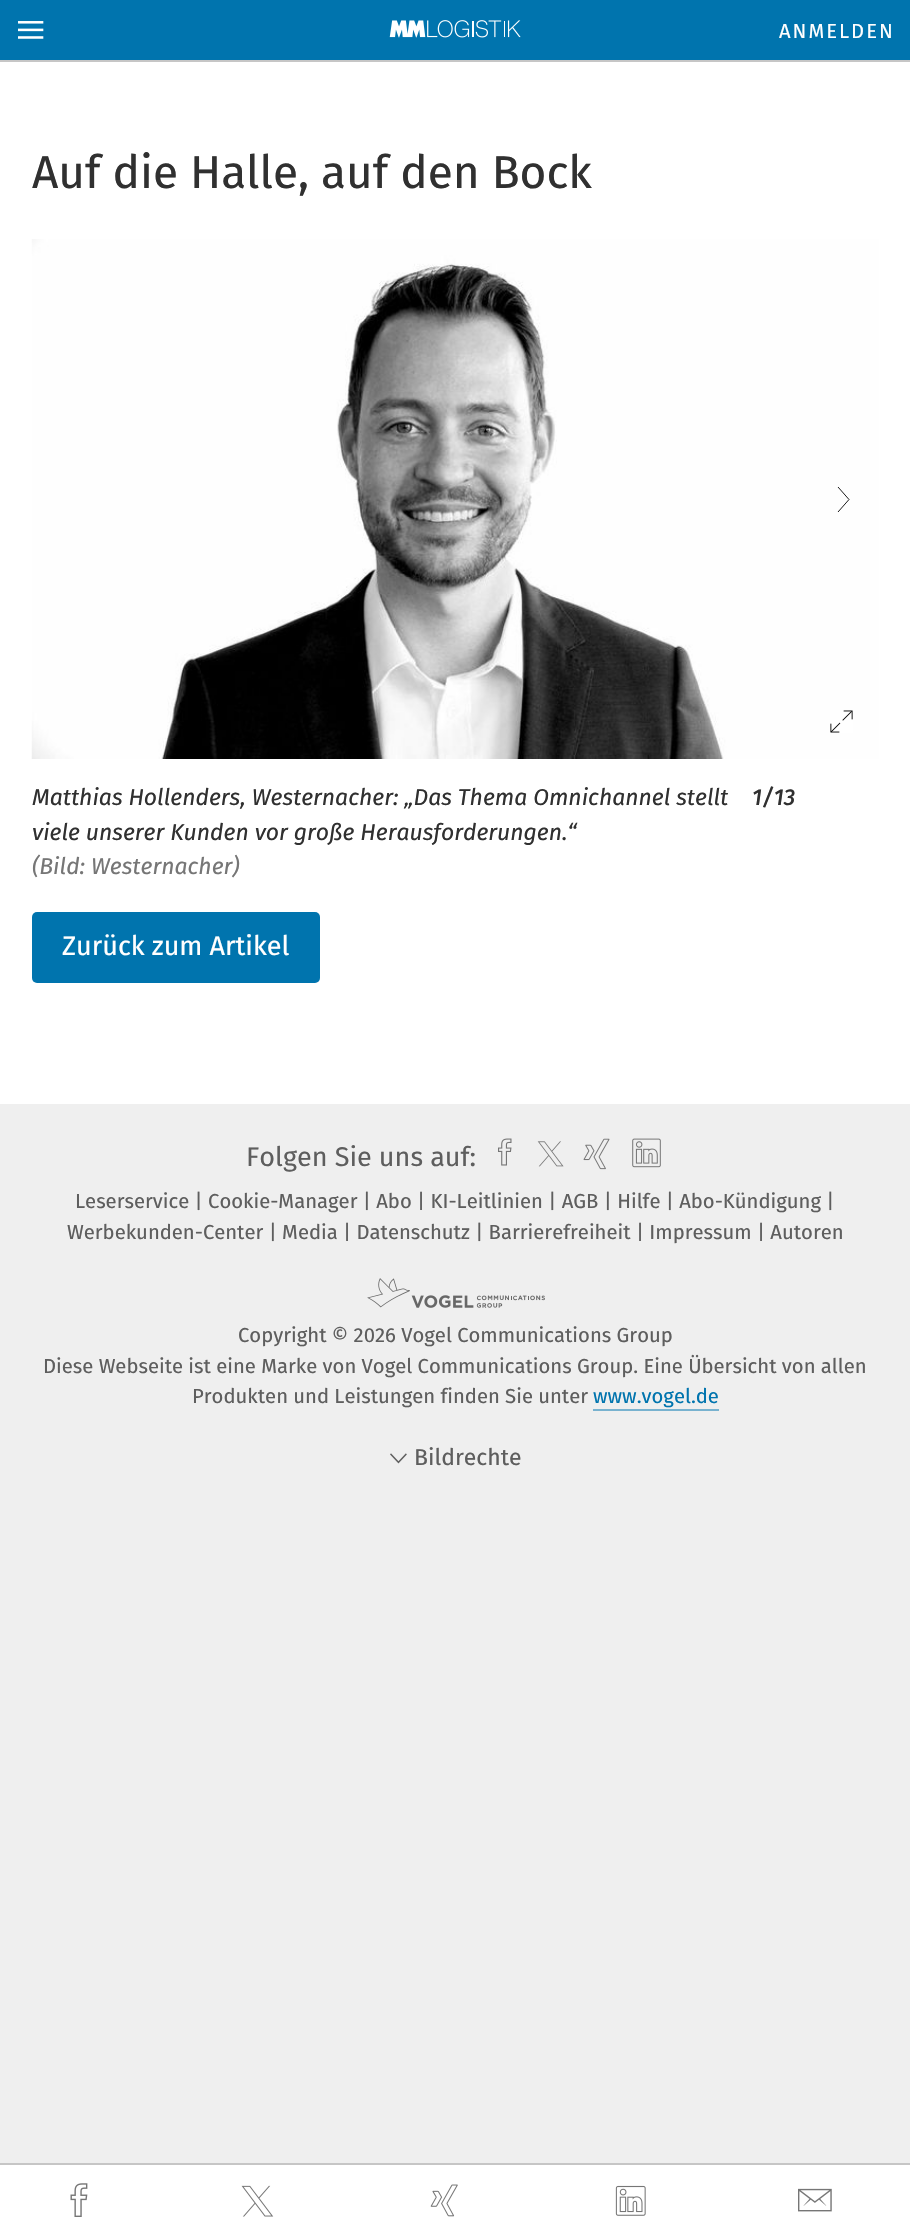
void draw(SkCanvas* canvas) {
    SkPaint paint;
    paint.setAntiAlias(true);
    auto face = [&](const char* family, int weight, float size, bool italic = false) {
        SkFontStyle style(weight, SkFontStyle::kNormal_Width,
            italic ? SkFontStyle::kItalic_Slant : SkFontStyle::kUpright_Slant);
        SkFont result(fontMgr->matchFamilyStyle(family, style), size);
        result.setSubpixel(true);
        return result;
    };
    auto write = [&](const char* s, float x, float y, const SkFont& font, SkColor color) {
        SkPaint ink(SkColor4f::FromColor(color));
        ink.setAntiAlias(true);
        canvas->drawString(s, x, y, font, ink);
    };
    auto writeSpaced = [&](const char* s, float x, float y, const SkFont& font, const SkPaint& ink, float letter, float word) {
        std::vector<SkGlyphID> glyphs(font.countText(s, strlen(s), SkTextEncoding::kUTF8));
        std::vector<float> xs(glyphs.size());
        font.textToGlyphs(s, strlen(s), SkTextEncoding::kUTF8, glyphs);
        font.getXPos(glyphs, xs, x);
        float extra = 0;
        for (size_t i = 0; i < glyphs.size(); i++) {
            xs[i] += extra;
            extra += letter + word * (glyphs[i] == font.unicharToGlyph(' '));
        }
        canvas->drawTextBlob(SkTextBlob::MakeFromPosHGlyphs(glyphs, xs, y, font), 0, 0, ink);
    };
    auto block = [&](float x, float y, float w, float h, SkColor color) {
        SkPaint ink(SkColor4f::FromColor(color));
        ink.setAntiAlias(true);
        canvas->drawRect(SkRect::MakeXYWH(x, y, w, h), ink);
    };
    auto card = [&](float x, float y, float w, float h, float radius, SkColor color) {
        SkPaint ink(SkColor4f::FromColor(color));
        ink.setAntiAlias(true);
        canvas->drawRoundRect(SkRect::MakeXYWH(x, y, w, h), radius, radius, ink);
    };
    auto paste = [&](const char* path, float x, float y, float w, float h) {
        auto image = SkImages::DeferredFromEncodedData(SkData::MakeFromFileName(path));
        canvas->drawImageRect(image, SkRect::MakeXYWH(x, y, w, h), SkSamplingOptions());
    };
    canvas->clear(SkColorSetRGB(239, 239, 239));
    block(0, 62, 910, 1042, SK_ColorWHITE);
    block(0, 60, 910, 2, SkColorSetRGB(198, 198, 198));
    block(0, 0, 910, 60, SkColorSetRGB(0, 116, 174));
    paste("pic1.png", 18, 21, 26, 18);
    paste("pic2.png", 389, 20, 132, 18);
    auto kFont1 = face("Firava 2", 400, 20.25f);
    paint.setColor(SK_ColorWHITE);
    writeSpaced("ANMELDEN", 779, 38, kFont1, paint, 2, 0);
    auto kFont2 = face("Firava", 400, 45.9f);
    write("Auf die Halle, auf den Bock", 32, 188, kFont2, SkColorSetRGB(48, 48, 48));
    paste("pic3.png", 31, 239, 848, 520);
    paint.setStyle(SkPaint::kStroke_Style);
    paint.setStrokeWidth(0.9f);
    paint.setColor(SK_ColorBLACK);
    canvas->drawPath(SkPathBuilder().moveTo(838, 512).lineTo(849, 499.5f).lineTo(838, 487).detach(), paint);
    paste("pic4.png", 830, 710, 23, 23);
    auto kFont3 = face("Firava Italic", 400, 22.95f, true);
    write("Matthias Hollenders, Westernacher: „Das Thema Omnichannel stellt", 32, 805, kFont3, SkColorSetRGB(48, 48, 48));
    write("viele unserer Kunden vor große Herausforderungen.“", 32, 840, kFont3, SkColorSetRGB(48, 48, 48));
    write("(Bild: Westernacher)", 32, 874, kFont3, SkColorSetRGB(118, 118, 118));
    auto kFont4 = face("Firava Italic", 500, 22.95f, true);
    write("1/13", 752, 805, kFont4, SkColorSetRGB(48, 48, 48));
    card(32, 912, 288, 71, 5, SkColorSetRGB(0, 116, 174));
    auto kFont5 = face("Firava", 400, 27);
    write("Zurück zum Artikel", 62, 955, kFont5, SK_ColorWHITE);
    block(0, 2165, 910, 73, SK_ColorWHITE);
    block(0, 2163, 910, 2, SkColorSetRGB(198, 198, 198));
    paste("pic5.png", 70, 2183, 18, 34);
    paste("pic6.png", 241, 2185, 33, 32);
    paste("pic7.png", 430, 2184, 28, 33);
    paste("pic8.png", 615, 2185, 31, 31);
    paste("pic9.png", 798, 2188, 34, 24);
    auto kFont6 = face("Firava 2", 400, 27);
    write("Folgen Sie uns auf:", 246, 1166, kFont6, SkColorSetRGB(94, 94, 94));
    paste("pic10.png", 498, 1138, 14, 28);
    paste("pic11.png", 537, 1141, 27, 26);
    paste("pic12.png", 583, 1138, 27, 32);
    paste("pic13.png", 632, 1138, 29, 30);
    auto kFont7 = face("Firava", 400, 20.25f);
    write("Leserservice | Cookie-Manager | Abo | KI-Leitlinien | AGB | Hilfe | Abo-Kündigung |", 75, 1208, kFont7, SkColorSetRGB(94, 94, 94));
    write("Werbekunden-Center | Media | Datenschutz | Barrierefreiheit | Impressum | Autoren", 67, 1239, kFont7, SkColorSetRGB(94, 94, 94));
    paste("pic14.png", 367, 1278, 178, 30);
    write("Copyright © 2026 Vogel Communications Group", 238, 1342, kFont7, SkColorSetRGB(94, 94, 94));
    write("Diese Webseite ist eine Marke von Vogel Communications Group. Eine Übersicht von allen", 43, 1373, kFont7, SkColorSetRGB(94, 94, 94));
    write("Produkten und Leistungen finden Sie unter", 192, 1403, kFont7, SkColorSetRGB(94, 94, 94));
    write("www.vogel.de", 593, 1403, kFont7, SkColorSetRGB(0, 116, 174));
    block(593, 1409, 126, 2, SkColorSetRGB(120, 178, 207));
    paste("pic15.png", 390, 1453, 17, 11);
    auto kFont8 = face("Firava", 400, 22.95f);
    write("Bildrechte", 414, 1465, kFont8, SkColorSetRGB(94, 94, 94));
}
